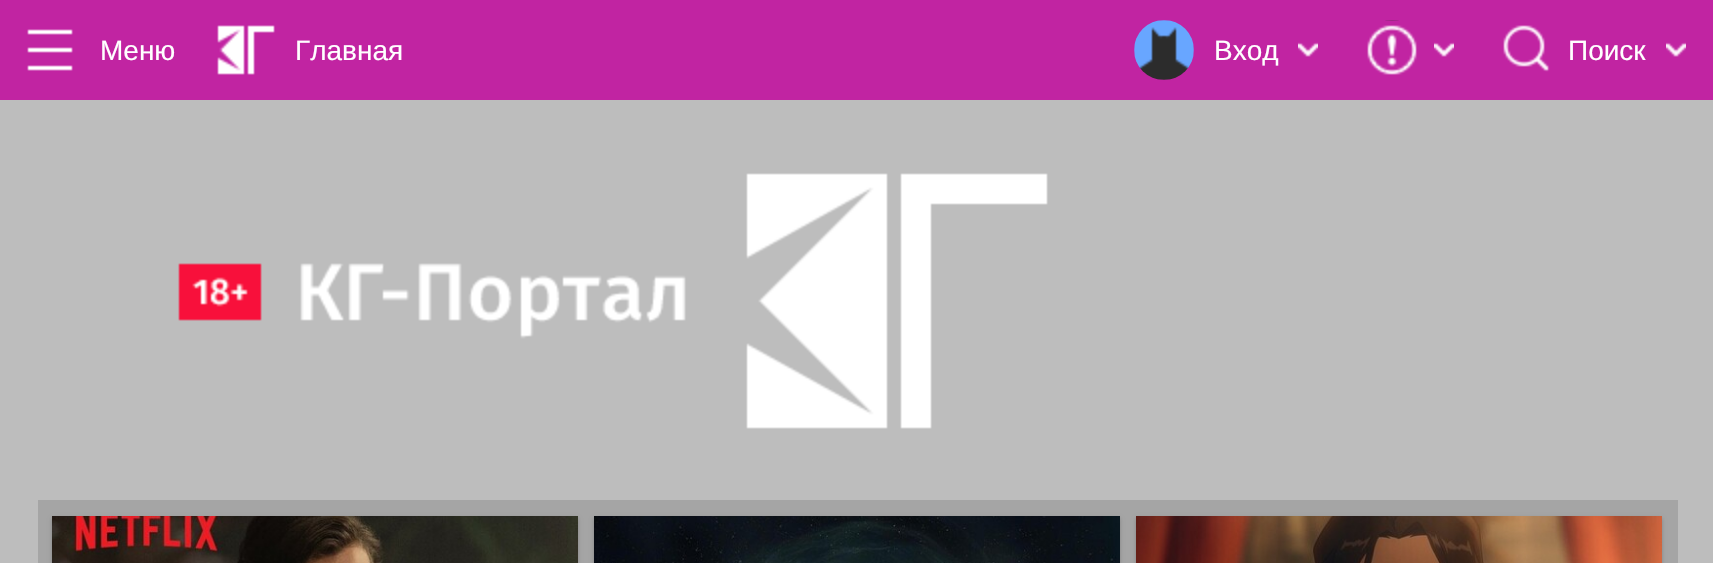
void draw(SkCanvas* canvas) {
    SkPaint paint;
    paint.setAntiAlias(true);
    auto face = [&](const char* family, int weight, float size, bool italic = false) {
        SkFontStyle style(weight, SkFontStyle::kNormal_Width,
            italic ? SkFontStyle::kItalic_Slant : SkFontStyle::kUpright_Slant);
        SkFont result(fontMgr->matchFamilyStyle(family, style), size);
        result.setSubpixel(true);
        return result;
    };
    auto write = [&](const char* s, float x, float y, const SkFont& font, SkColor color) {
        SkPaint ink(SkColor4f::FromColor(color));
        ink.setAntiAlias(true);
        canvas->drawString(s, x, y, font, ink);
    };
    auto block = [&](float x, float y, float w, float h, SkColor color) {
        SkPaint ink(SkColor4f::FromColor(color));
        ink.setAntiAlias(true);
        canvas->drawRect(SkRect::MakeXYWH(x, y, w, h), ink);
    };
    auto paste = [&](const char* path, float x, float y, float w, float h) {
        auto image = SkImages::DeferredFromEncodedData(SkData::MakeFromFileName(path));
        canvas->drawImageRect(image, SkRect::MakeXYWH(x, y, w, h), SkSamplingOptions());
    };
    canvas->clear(SkColorSetRGB(189, 189, 189));
    paste("pic1.png", 178, 173, 870, 256);
    block(0, 0, 1713, 100, SkColorSetRGB(193, 36, 162));
    paste("pic2.png", 27, 29, 46, 42);
    auto kFont1 = face("Liberation Sans", 400, 28);
    write("Меню", 100, 60, kFont1, SK_ColorWHITE);
    paste("pic3.png", 217, 25, 58, 50);
    write("Главная", 295, 60, kFont1, SK_ColorWHITE);
    paste("pic4.png", 1134, 20, 60, 60);
    write("Вход", 1214, 60, kFont1, SK_ColorWHITE);
    paste("pic5.png", 1298, 42, 20, 15);
    paste("pic6.png", 1367, 20, 50, 55);
    paste("pic5.png", 1434, 42, 20, 15);
    paste("pic7.png", 1503, 25, 47, 47);
    write("Поиск", 1568, 60, kFont1, SK_ColorWHITE);
    paste("pic5.png", 1666, 42, 20, 15);
    block(38, 500, 1640, 63, SkColorSetRGB(165, 165, 165));
    paint.setColor(SkColorSetARGB(51, 0, 0, 0));
    paint.setMaskFilter(SkMaskFilter::MakeBlur(kNormal_SkBlurStyle, 2));
    canvas->drawRect(SkRect::MakeXYWH(52, 518, 526, 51), paint);
    paint.setMaskFilter(nullptr);
    paste("pic8.png", 52, 516, 526, 47);
    paint.setMaskFilter(SkMaskFilter::MakeBlur(kNormal_SkBlurStyle, 2));
    canvas->drawRect(SkRect::MakeXYWH(594, 518, 526, 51), paint);
    paint.setMaskFilter(nullptr);
    paste("pic9.png", 594, 516, 526, 47);
    paint.setMaskFilter(SkMaskFilter::MakeBlur(kNormal_SkBlurStyle, 2));
    canvas->drawRect(SkRect::MakeXYWH(1136, 518, 526, 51), paint);
    paint.setMaskFilter(nullptr);
    paste("pic10.png", 1136, 516, 526, 47);
}
